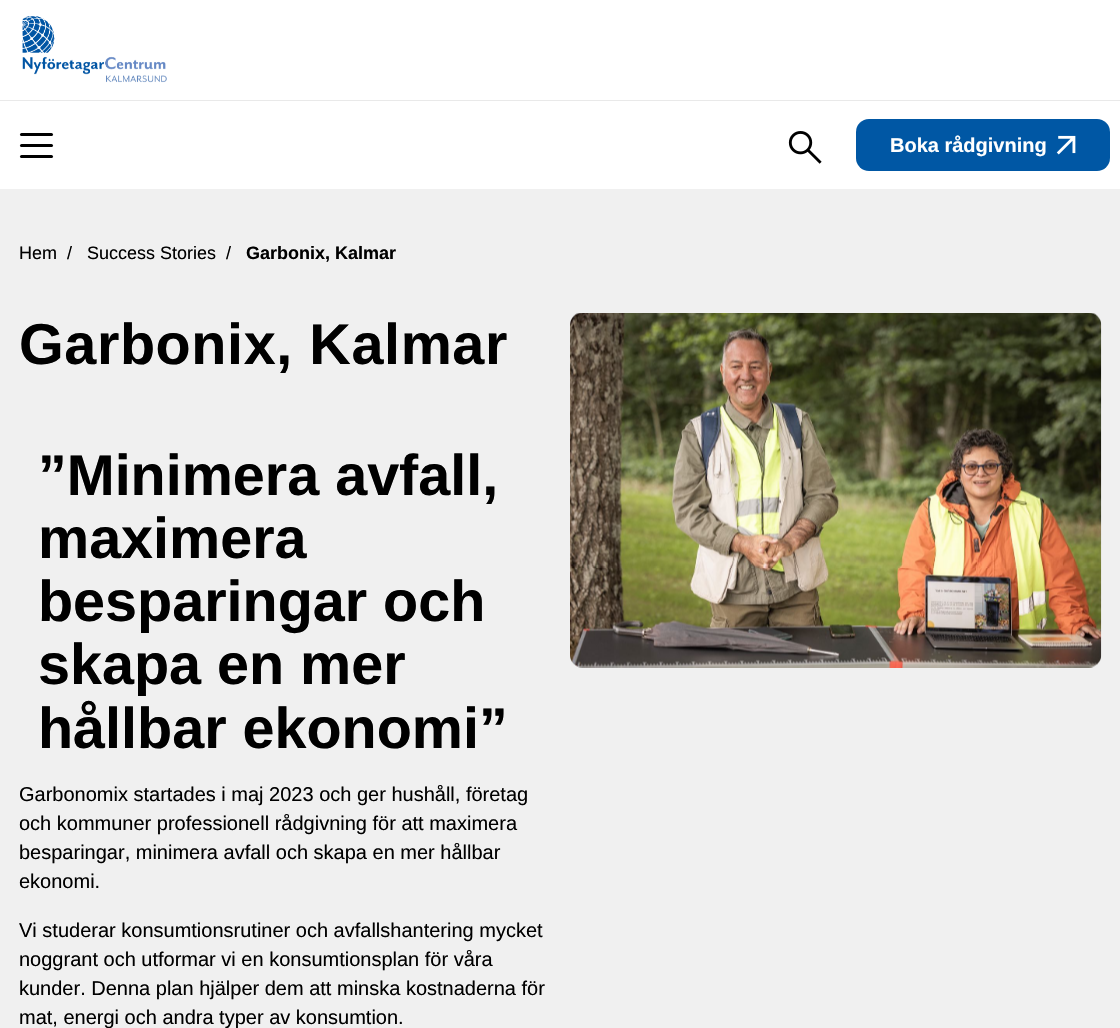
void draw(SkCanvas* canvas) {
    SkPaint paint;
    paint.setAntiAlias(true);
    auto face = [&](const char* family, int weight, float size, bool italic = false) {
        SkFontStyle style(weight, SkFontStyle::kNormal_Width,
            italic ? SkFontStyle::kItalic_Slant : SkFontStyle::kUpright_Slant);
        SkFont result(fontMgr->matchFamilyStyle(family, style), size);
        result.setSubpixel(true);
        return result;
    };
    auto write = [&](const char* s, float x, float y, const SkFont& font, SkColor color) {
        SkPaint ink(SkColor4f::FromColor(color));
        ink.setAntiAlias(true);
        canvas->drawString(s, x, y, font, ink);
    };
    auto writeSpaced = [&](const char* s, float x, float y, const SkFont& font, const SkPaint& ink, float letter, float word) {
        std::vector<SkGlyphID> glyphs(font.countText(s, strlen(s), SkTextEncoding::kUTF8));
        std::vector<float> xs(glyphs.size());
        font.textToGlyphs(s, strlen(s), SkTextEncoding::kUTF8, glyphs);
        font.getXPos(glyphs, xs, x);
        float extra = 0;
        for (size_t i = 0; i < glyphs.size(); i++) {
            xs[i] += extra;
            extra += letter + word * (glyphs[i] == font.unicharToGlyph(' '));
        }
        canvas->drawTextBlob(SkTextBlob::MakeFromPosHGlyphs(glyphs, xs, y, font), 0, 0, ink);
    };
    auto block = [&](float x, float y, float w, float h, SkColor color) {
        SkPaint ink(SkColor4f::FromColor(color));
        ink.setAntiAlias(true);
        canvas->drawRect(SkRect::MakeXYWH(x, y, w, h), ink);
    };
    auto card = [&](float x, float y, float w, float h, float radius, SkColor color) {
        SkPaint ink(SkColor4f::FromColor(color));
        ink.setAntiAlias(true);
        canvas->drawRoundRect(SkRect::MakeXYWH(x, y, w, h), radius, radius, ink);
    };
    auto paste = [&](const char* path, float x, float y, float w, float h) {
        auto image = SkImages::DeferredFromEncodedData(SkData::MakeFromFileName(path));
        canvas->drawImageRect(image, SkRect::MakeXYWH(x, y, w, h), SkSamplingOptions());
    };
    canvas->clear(SkColorSetRGB(240, 240, 240));
    block(0, 0, 1120, 100, SK_ColorWHITE);
    paste("pic1.png", 22, 16, 145, 67);
    block(0, 101, 1120, 88, SK_ColorWHITE);
    block(0, 100, 1120, 1, SkColorSetRGB(233, 233, 233));
    card(20, 133, 33, 3, 1.5f, SK_ColorBLACK);
    card(20, 144, 33, 3, 1.5f, SK_ColorBLACK);
    card(20, 155, 33, 3, 1.5f, SK_ColorBLACK);
    paste("pic2.png", 788, 131, 34, 33);
    card(856, 119, 254, 52, 13, SkColorSetRGB(0, 87, 164));
    auto kFont1 = face("Liberation Sans", 700, 20);
    write("Boka rådgivning", 890, 152, kFont1, SK_ColorWHITE);
    paste("pic3.png", 1056, 135, 20, 20);
    auto kFont2 = face("Liberation Sans", 400, 18);
    write("Hem", 19, 259, kFont2, SK_ColorBLACK);
    write("/", 67, 259, kFont2, SK_ColorBLACK);
    write("Success Stories", 87, 259, kFont2, SK_ColorBLACK);
    write("/", 226, 259, kFont2, SK_ColorBLACK);
    auto kFont3 = face("Liberation Sans", 700, 18);
    write("Garbonix, Kalmar", 246, 259, kFont3, SK_ColorBLACK);
    auto kFont4 = face("Liberation Sans", 700, 57.5f);
    paint.setColor(SK_ColorBLACK);
    writeSpaced("Garbonix, Kalmar", 19, 364, kFont4, paint, 0.6f, 0);
    write("”Minimera avfall,", 38, 495, kFont4, SK_ColorBLACK);
    write("maximera", 38, 558, kFont4, SK_ColorBLACK);
    write("besparingar och", 38, 621, kFont4, SK_ColorBLACK);
    write("skapa en mer", 38, 684, kFont4, SK_ColorBLACK);
    write("hållbar ekonomi”", 38, 748, kFont4, SK_ColorBLACK);
    auto kFont5 = face("Liberation Sans", 400, 20);
    write("Garbonomix startades i maj 2023 och ger hushåll, företag", 19, 801, kFont5, SK_ColorBLACK);
    write("och kommuner professionell rådgivning för att maximera", 19, 830, kFont5, SK_ColorBLACK);
    write("besparingar, minimera avfall och skapa en mer hållbar", 19, 859, kFont5, SK_ColorBLACK);
    write("ekonomi.", 19, 888, kFont5, SK_ColorBLACK);
    write("Vi studerar konsumtionsrutiner och avfallshantering mycket", 19, 937, kFont5, SK_ColorBLACK);
    write("noggrant och utformar vi en konsumtionsplan för våra", 19, 966, kFont5, SK_ColorBLACK);
    write("kunder. Denna plan hjälper dem att minska kostnaderna för", 19, 995, kFont5, SK_ColorBLACK);
    write("mat, energi och andra typer av konsumtion.", 19, 1024, kFont5, SK_ColorBLACK);
    paste("pic4.png", 570, 313, 532, 355);
}
